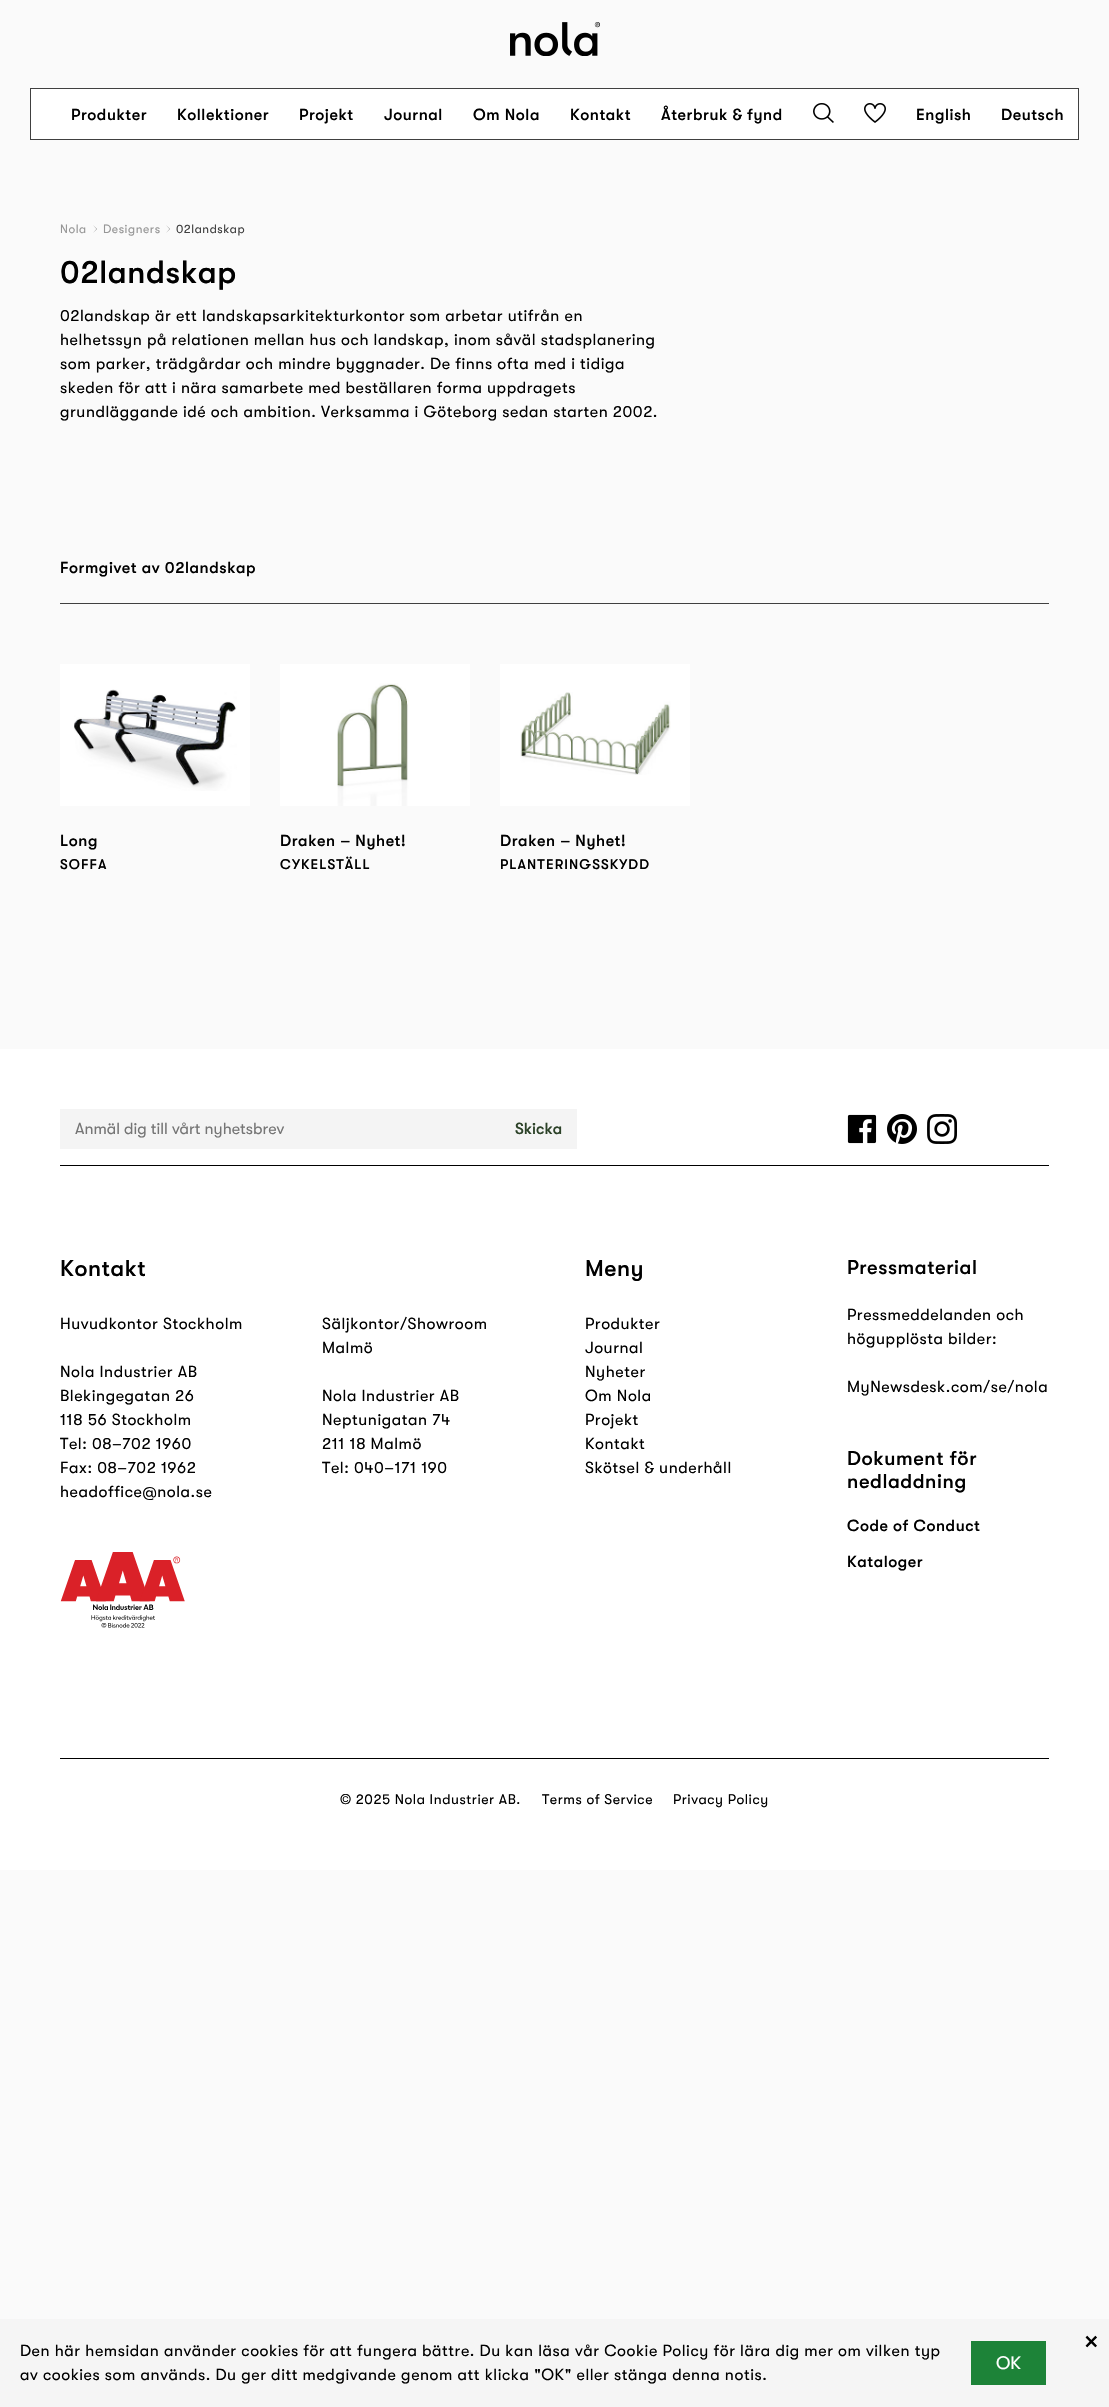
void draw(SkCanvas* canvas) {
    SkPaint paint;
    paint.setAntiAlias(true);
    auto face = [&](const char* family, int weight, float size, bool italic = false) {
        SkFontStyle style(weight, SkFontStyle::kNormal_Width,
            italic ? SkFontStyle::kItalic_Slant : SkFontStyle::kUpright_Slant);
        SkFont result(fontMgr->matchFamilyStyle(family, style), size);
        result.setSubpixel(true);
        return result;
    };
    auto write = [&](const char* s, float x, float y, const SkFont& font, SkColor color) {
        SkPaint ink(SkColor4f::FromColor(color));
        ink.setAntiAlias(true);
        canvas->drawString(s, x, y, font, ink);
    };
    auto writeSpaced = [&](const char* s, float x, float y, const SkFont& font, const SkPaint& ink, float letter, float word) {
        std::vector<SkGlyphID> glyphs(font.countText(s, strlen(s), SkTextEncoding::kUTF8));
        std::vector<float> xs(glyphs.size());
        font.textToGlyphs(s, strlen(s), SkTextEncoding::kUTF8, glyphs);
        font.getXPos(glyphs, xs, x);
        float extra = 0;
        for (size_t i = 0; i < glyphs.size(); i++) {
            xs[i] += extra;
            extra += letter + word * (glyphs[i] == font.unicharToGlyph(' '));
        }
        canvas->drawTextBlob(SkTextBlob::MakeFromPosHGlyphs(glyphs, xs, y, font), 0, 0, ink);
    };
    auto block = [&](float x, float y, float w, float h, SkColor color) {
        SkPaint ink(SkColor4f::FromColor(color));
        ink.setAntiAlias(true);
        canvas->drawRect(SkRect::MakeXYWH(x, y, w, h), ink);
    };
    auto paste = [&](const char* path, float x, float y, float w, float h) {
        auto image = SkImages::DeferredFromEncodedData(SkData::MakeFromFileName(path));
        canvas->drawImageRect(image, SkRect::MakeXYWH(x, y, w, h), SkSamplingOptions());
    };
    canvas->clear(SkColorSetRGB(250, 250, 250));
    paste("pic1.png", 510, 22, 90, 34);
    paint.setColor(SK_ColorWHITE);
    canvas->drawRect(SkRect::MakeXYWH(30.5f, 88.5f, 1048, 51), paint);
    paint.setStyle(SkPaint::kStroke_Style);
    paint.setStrokeWidth(1);
    paint.setColor(SkColorSetRGB(64, 64, 64));
    canvas->drawRect(SkRect::MakeXYWH(30.5f, 88.5f, 1048, 51), paint);
    auto kFont1 = face("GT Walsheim", 500, 16);
    paint.setStyle(SkPaint::kFill_Style);
    paint.setColor(SK_ColorBLACK);
    writeSpaced("Produkter", 71, 120, kFont1, paint, 0.56f, 0);
    writeSpaced("Kollektioner", 177, 120, kFont1, paint, 0.56f, 0);
    writeSpaced("Projekt", 299, 120, kFont1, paint, 0.56f, 0);
    writeSpaced("Journal", 384, 120, kFont1, paint, 0.56f, 0);
    writeSpaced("Om Nola", 473, 120, kFont1, paint, 0.56f, 0);
    writeSpaced("Kontakt", 570, 120, kFont1, paint, 0.56f, 0);
    writeSpaced("Återbruk & fynd", 661, 120, kFont1, paint, 0.56f, 0);
    paste("pic2.png", 813, 103, 21, 20);
    paste("pic3.png", 864, 103, 22, 20);
    writeSpaced("English", 916, 120, kFont1, paint, 0.56f, 0);
    writeSpaced("Deutsch", 1001, 120, kFont1, paint, 0.56f, 0);
    auto kFont2 = face("GT Walsheim", 400, 12);
    paint.setColor(SkColorSetRGB(150, 150, 150));
    writeSpaced("Nola", 60, 233, kFont2, paint, 0.56f, 0);
    paint.setColor(SkColorSetRGB(100, 100, 100));
    canvas->drawPath(SkPathBuilder().moveTo(93, 225).lineTo(97, 229).lineTo(93, 233).lineTo(96.5f, 229).close().detach(), paint);
    paint.setColor(SkColorSetRGB(150, 150, 150));
    writeSpaced("Designers", 103, 233, kFont2, paint, 0.56f, 0);
    paint.setColor(SkColorSetRGB(100, 100, 100));
    canvas->drawPath(SkPathBuilder().moveTo(166, 225).lineTo(170, 229).lineTo(166, 233).lineTo(169.5f, 229).close().detach(), paint);
    paint.setColor(SkColorSetRGB(63, 63, 63));
    writeSpaced("02landskap", 176, 233, kFont2, paint, 0.56f, 0);
    auto kFont3 = face("GT Walsheim", 500, 32);
    paint.setColor(SK_ColorBLACK);
    writeSpaced("02landskap", 60, 283, kFont3, paint, 0.56f, 0);
    auto kFont4 = face("GT Walsheim", 400, 16);
    writeSpaced("02landskap är ett landskapsarkitekturkontor som arbetar utifrån en", 60, 321, kFont4, paint, 0.56f, 0);
    writeSpaced("helhetssyn på relationen mellan hus och landskap, inom såväl stadsplanering", 60, 345, kFont4, paint, 0.56f, 0);
    writeSpaced("som parker, trädgårdar och mindre byggnader. De finns ofta med i tidiga", 60, 369, kFont4, paint, 0.56f, 0);
    writeSpaced("skeden för att i nära samarbete med beställaren forma uppdragets", 60, 393, kFont4, paint, 0.56f, 0);
    writeSpaced("grundläggande idé och ambition. Verksamma i Göteborg sedan starten 2002.", 60, 417, kFont4, paint, 0.56f, 0);
    block(60, 603, 989, 1, SkColorSetRGB(64, 64, 64));
    writeSpaced("Formgivet av 02landskap", 60, 573, kFont1, paint, 0.56f, 0);
    block(60, 664, 190, 142, SK_ColorWHITE);
    paste("pic4.png", 74, 689, 163, 102);
    writeSpaced("Long", 60, 846, kFont1, paint, 0.56f, 0);
    auto kFont5 = face("GT Walsheim", 500, 14);
    writeSpaced("SOFFA", 60, 869, kFont5, paint, 1.1f, 0);
    block(280, 664, 190, 142, SK_ColorWHITE);
    paste("pic5.png", 337, 683, 72, 123);
    writeSpaced("Draken – Nyhet!", 280, 846, kFont1, paint, 0.56f, 0);
    writeSpaced("CYKELSTÄLL", 280, 869, kFont5, paint, 1.1f, 0);
    block(500, 664, 190, 142, SK_ColorWHITE);
    paste("pic6.png", 520, 692, 151, 83);
    writeSpaced("Draken – Nyhet!", 500, 846, kFont1, paint, 0.56f, 0);
    writeSpaced("PLANTERINGSSKYDD", 500, 869, kFont5, paint, 1.1f, 0);
    block(0, 1049, 1109, 821, SK_ColorWHITE);
    block(60, 1109, 517, 40, SkColorSetRGB(244, 244, 244));
    write("Anmäl dig till vårt nyhetsbrev", 75, 1134, kFont4, SkColorSetRGB(117, 117, 117));
    write("Skicka", 515, 1134, kFont1, SkColorSetRGB(44, 66, 40));
    paste("pic7.png", 847, 1114, 30, 30);
    paste("pic8.png", 887, 1114, 30, 30);
    paste("pic9.png", 927, 1114, 30, 30);
    block(60, 1165, 989, 1, SK_ColorBLACK);
    auto kFont6 = face("GT Walsheim", 500, 23);
    writeSpaced("Kontakt", 60, 1276, kFont6, paint, 0.56f, 0);
    writeSpaced("Huvudkontor Stockholm", 60, 1329, kFont4, paint, 0.56f, 0);
    writeSpaced("Nola Industrier AB", 60, 1377, kFont4, paint, 0.56f, 0);
    writeSpaced("Blekingegatan 26", 60, 1401, kFont4, paint, 0.56f, 0);
    writeSpaced("118 56 Stockholm", 60, 1425, kFont4, paint, 0.56f, 0);
    writeSpaced("Tel: 08–702 1960", 60, 1449, kFont4, paint, 0.56f, 0);
    writeSpaced("Fax: 08–702 1962", 60, 1473, kFont4, paint, 0.56f, 0);
    writeSpaced("headoffice@nola.se", 60, 1497, kFont4, paint, 0.56f, 0);
    paste("pic10.png", 60, 1552, 125, 76);
    writeSpaced("Säljkontor/Showroom", 322, 1329, kFont4, paint, 0.56f, 0);
    writeSpaced("Malmö", 322, 1353, kFont4, paint, 0.56f, 0);
    writeSpaced("Nola Industrier AB", 322, 1401, kFont4, paint, 0.56f, 0);
    writeSpaced("Neptunigatan 74", 322, 1425, kFont4, paint, 0.56f, 0);
    writeSpaced("211 18 Malmö", 322, 1449, kFont4, paint, 0.56f, 0);
    writeSpaced("Tel: 040–171 190", 322, 1473, kFont4, paint, 0.56f, 0);
    writeSpaced("Meny", 585, 1276, kFont6, paint, 0.56f, 0);
    writeSpaced("Produkter", 585, 1329, kFont4, paint, 0.56f, 0);
    writeSpaced("Journal", 585, 1353, kFont4, paint, 0.56f, 0);
    writeSpaced("Nyheter", 585, 1377, kFont4, paint, 0.56f, 0);
    writeSpaced("Om Nola", 585, 1401, kFont4, paint, 0.56f, 0);
    writeSpaced("Projekt", 585, 1425, kFont4, paint, 0.56f, 0);
    writeSpaced("Kontakt", 585, 1449, kFont4, paint, 0.56f, 0);
    writeSpaced("Skötsel & underhåll", 585, 1473, kFont4, paint, 0.56f, 0);
    auto kFont7 = face("GT Walsheim", 500, 20);
    writeSpaced("Pressmaterial", 847, 1274, kFont7, paint, 0.56f, 0);
    writeSpaced("Pressmeddelanden och", 847, 1320, kFont4, paint, 0.56f, 0);
    writeSpaced("högupplösta bilder:", 847, 1344, kFont4, paint, 0.56f, 0);
    writeSpaced("MyNewsdesk.com/se/nola", 847, 1392, kFont4, paint, 0.56f, 0);
    writeSpaced("Dokument för", 847, 1465, kFont7, paint, 0.56f, 0);
    writeSpaced("nedladdning", 847, 1488, kFont7, paint, 0.56f, 0);
    writeSpaced("Code of Conduct", 847, 1531, kFont1, paint, 0.56f, 0);
    writeSpaced("Kataloger", 847, 1567, kFont1, paint, 0.56f, 0);
    block(60, 1758, 989, 1, SK_ColorBLACK);
    auto kFont8 = face("GT Walsheim", 400, 14);
    writeSpaced("© 2025 Nola Industrier AB.", 340, 1804, kFont8, paint, 0.56f, 0);
    writeSpaced("Terms of Service", 542, 1804, kFont8, paint, 0.56f, 0);
    writeSpaced("Privacy Policy", 673, 1804, kFont8, paint, 0.56f, 0);
    block(0, 2319, 1109, 88, SkColorSetRGB(245, 245, 245));
    auto kFont9 = face("GT Walsheim", 400, 30);
    writeSpaced("×", 1084, 2351, kFont9, paint, 0.56f, 0);
    writeSpaced("Den här hemsidan använder cookies för att fungera bättre. Du kan läsa vår Cookie Policy för lära dig mer om vilken typ", 20, 2356, kFont4, paint, 0.56f, 0);
    writeSpaced("av cookies som används. Du ger ditt medgivande genom att klicka \"OK\" eller stänga denna notis.", 20, 2380, kFont4, paint, 0.56f, 0);
    block(971, 2341, 75, 44, SkColorSetRGB(29, 131, 56));
    auto kFont10 = face("GT Walsheim", 400, 18);
    write("OK", 996, 2369, kFont10, SK_ColorWHITE);
}
